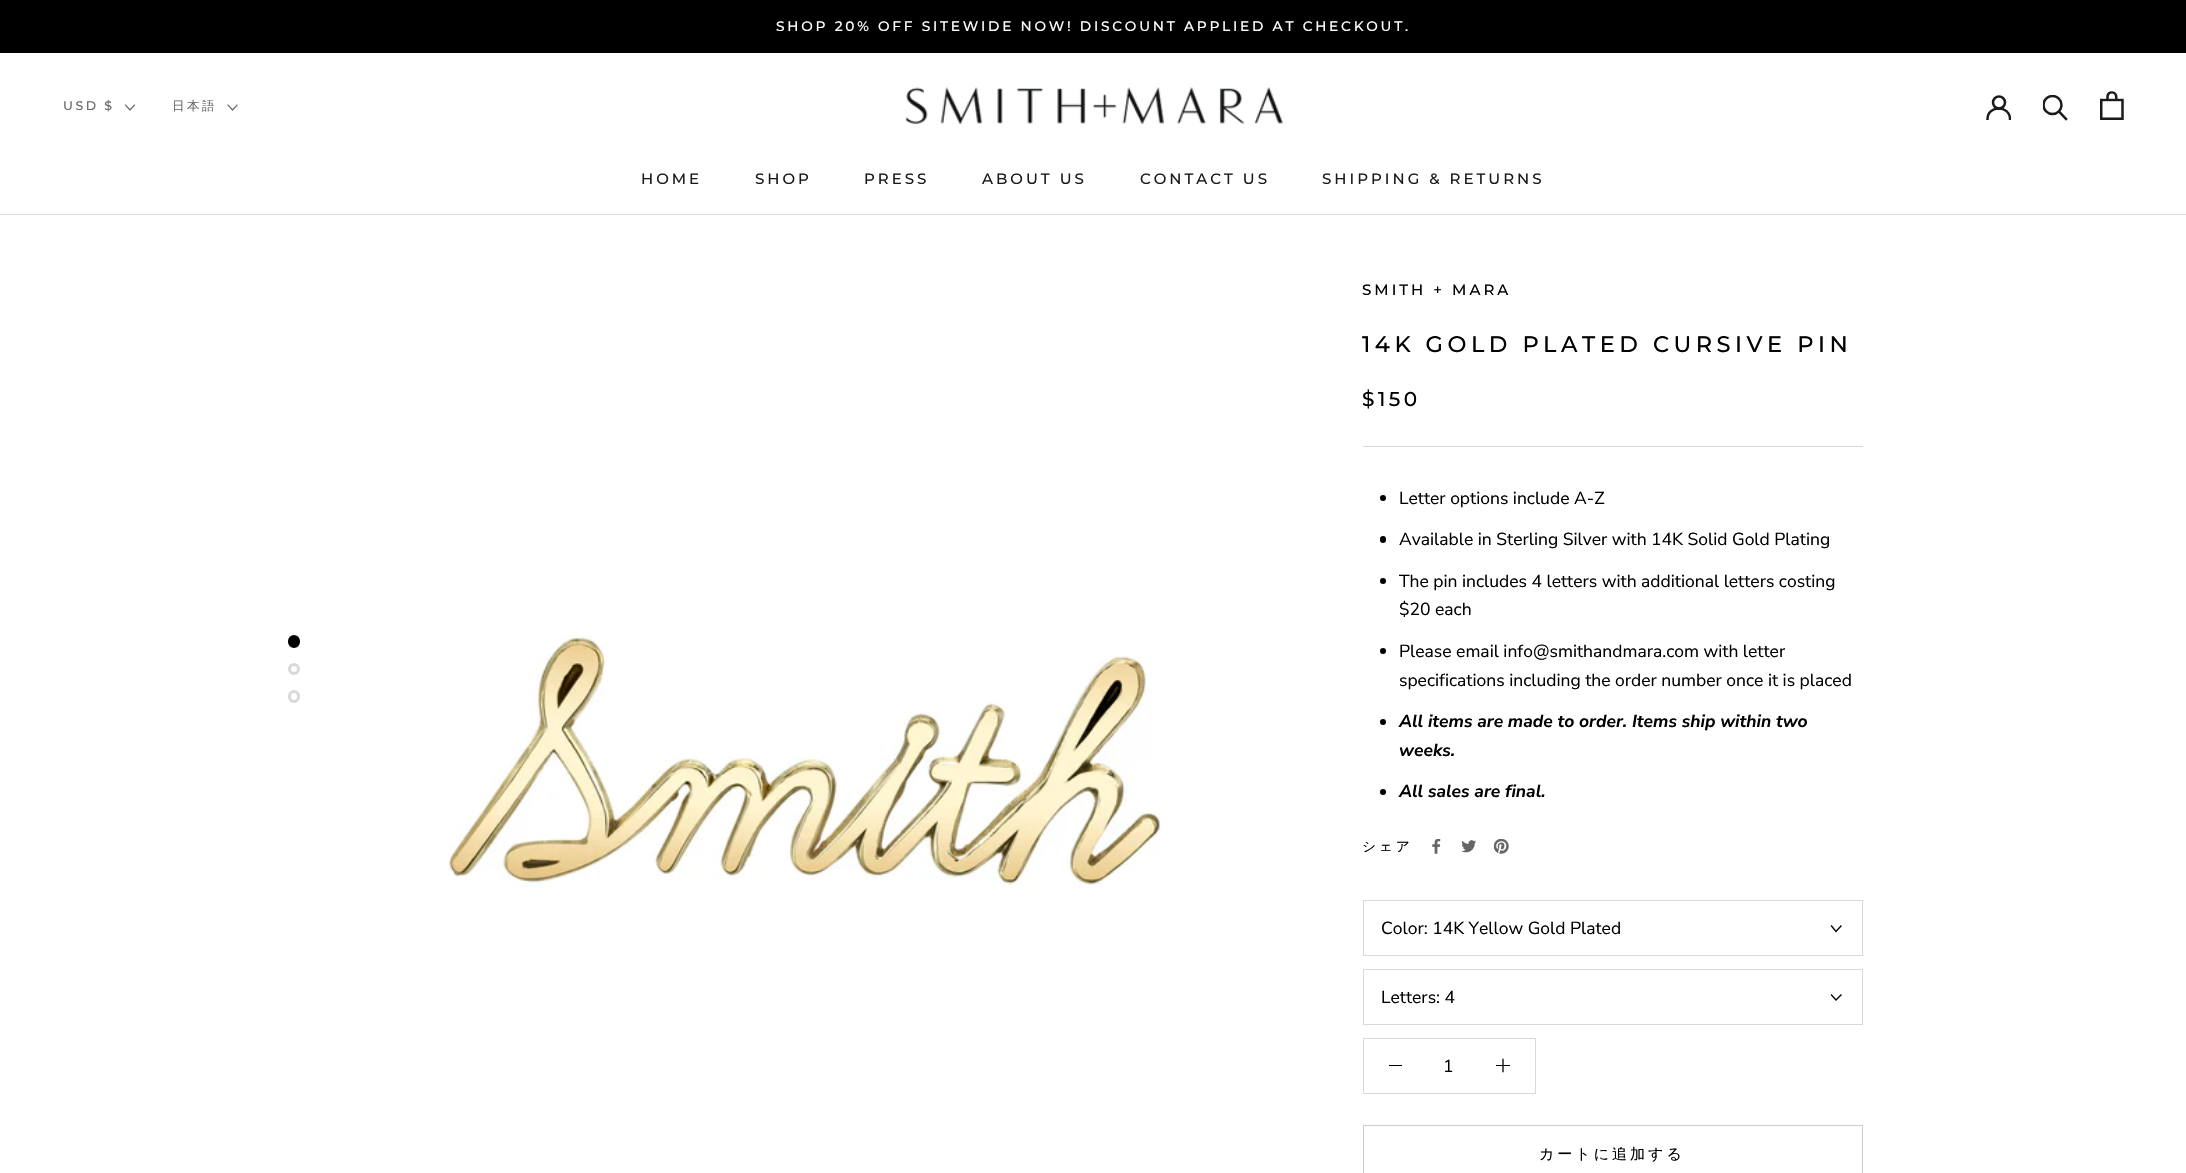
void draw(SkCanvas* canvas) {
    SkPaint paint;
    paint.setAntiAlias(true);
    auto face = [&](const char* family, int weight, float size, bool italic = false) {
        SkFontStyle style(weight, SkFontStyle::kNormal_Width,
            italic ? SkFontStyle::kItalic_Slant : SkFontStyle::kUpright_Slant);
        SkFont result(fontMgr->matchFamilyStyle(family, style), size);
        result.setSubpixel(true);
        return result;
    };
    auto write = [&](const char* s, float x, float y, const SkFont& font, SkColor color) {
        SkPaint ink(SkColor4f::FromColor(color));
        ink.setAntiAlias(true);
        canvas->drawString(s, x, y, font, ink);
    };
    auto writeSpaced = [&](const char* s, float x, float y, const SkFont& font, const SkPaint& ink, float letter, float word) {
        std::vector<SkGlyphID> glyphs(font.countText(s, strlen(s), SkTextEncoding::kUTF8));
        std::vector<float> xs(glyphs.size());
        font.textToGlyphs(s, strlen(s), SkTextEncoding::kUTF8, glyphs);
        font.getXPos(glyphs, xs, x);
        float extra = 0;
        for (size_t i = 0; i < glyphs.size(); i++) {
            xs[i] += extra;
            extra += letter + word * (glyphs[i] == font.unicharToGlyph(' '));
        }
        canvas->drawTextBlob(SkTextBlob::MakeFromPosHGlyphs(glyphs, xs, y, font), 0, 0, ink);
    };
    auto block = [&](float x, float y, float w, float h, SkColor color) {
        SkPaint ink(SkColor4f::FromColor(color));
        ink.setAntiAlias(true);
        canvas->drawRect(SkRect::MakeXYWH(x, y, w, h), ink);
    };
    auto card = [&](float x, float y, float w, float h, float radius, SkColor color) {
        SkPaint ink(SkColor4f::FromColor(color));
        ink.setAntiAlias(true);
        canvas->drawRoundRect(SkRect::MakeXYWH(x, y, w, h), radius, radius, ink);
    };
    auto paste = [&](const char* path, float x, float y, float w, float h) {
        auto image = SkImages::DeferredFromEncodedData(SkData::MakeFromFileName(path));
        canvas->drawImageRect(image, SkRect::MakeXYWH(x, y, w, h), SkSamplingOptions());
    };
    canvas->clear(SK_ColorWHITE);
    block(0, 0, 2186, 53, SK_ColorBLACK);
    auto kFont1 = face("Montserrat", 500, 13.75f);
    paint.setColor(SK_ColorWHITE);
    writeSpaced("SHOP 20% OFF SITEWIDE NOW! DISCOUNT APPLIED AT CHECKOUT.", 776, 31, kFont1, paint, 2.75f, 0);
    block(0, 214, 2186, 1, SkColorSetRGB(221, 221, 221));
    paste("pic1.png", 905, 87, 378, 38);
    canvas->save();
    canvas->clipRect(SkRect::MakeXYWH(1986, 95, 25, 25));
    paint.setStyle(SkPaint::kStroke_Style);
    paint.setStrokeWidth(2.5f);
    paint.setStrokeCap(SkPaint::kSquare_Cap);
    paint.setColor(SkColorSetRGB(28, 27, 27));
    canvas->drawPath(SkPathBuilder().moveTo(1987.5f, 119).cubicTo(1987.5f, 105, 2010, 105, 2010, 119).detach(), paint);
    canvas->restore();
    paint.setStrokeCap(SkPaint::kButt_Cap);
    canvas->drawCircle(1999, 102.5f, 6, paint);
    paint.setStrokeCap(SkPaint::kSquare_Cap);
    canvas->drawPath(SkPathBuilder().moveTo(2066, 119).lineTo(2059, 111.5f).detach(), paint);
    canvas->save();
    canvas->clipRect(SkRect::MakeXYWH(2043, 95, 26, 26));
    paint.setStrokeCap(SkPaint::kButt_Cap);
    canvas->drawCircle(2052.5f, 105, 9, paint);
    canvas->restore();
    paste("pic2.png", 2100, 91, 24, 29);
    auto kFont2 = face("Montserrat", 500, 12.5f);
    paint.setStyle(SkPaint::kFill_Style);
    paint.setColor(SkColorSetRGB(106, 106, 106));
    writeSpaced("USD $", 63, 110, kFont2, paint, 2.5f, 0);
    paint.setStyle(SkPaint::kStroke_Style);
    paint.setStrokeWidth(1.2f);
    paint.setStrokeCap(SkPaint::kSquare_Cap);
    canvas->drawPath(SkPathBuilder().moveTo(134.5f, 105).lineTo(130, 110).lineTo(125.5f, 105).detach(), paint);
    auto kFont3 = face("WenQuanYi Zen Hei", 500, 12.5f);
    paint.setStyle(SkPaint::kFill_Style);
    writeSpaced("日本語", 172, 110, kFont3, paint, 2.5f, 0);
    paint.setStyle(SkPaint::kStroke_Style);
    canvas->drawPath(SkPathBuilder().moveTo(237, 105).lineTo(232.5f, 110).lineTo(228, 105).detach(), paint);
    auto kFont4 = face("Montserrat", 500, 15);
    paint.setStyle(SkPaint::kFill_Style);
    paint.setColor(SkColorSetRGB(28, 27, 27));
    writeSpaced("HOME", 641, 184, kFont4, paint, 3, 0);
    writeSpaced("SHOP", 755, 184, kFont4, paint, 3, 0);
    writeSpaced("PRESS", 864, 184, kFont4, paint, 3, 0);
    writeSpaced("ABOUT US", 982, 184, kFont4, paint, 3, 0);
    writeSpaced("CONTACT US", 1140, 184, kFont4, paint, 3, 0);
    writeSpaced("SHIPPING & RETURNS", 1322, 184, kFont4, paint, 3, 0);
    paint.setColor(SK_ColorBLACK);
    canvas->drawRoundRect(SkRect::MakeXYWH(289.5f, 636.5f, 9, 10), 4.5f, 4.5f, paint);
    paint.setStyle(SkPaint::kStroke_Style);
    paint.setStrokeWidth(3);
    paint.setStrokeCap(SkPaint::kButt_Cap);
    canvas->drawRoundRect(SkRect::MakeXYWH(289.5f, 636.5f, 9, 10), 4.5f, 4.5f, paint);
    paint.setColor(SkColorSetRGB(217, 217, 217));
    canvas->drawCircle(294, 669, 4.5f, paint);
    canvas->drawRoundRect(SkRect::MakeXYWH(289.5f, 691.5f, 9, 10), 4.5f, 4.5f, paint);
    paste("pic3.png", 447, 635, 714, 255);
    paint.setStyle(SkPaint::kFill_Style);
    paint.setColor(SK_ColorBLACK);
    writeSpaced("SMITH + MARA", 1362, 295, kFont4, paint, 3, 0);
    auto kFont5 = face("Montserrat", 500, 22.5f);
    writeSpaced("14K GOLD PLATED CURSIVE PIN", 1362, 352, kFont5, paint, 4.5f, 0);
    auto kFont6 = face("Montserrat", 500, 20);
    writeSpaced("$150", 1362, 406, kFont6, paint, 3.5f, 0);
    block(1363, 446, 500, 1, SkColorSetRGB(217, 217, 217));
    canvas->drawCircle(1383, 498, 3, paint);
    auto kFont7 = face("Nunito Sans", 400, 17.5f);
    write("Letter options include A-Z", 1399, 504, kFont7, SK_ColorBLACK);
    card(1380, 536, 6, 7, 3, SK_ColorBLACK);
    write("Available in Sterling Silver with 14K Solid Gold Plating", 1399, 545, kFont7, SK_ColorBLACK);
    canvas->drawCircle(1383, 581, 3, paint);
    write("The pin includes 4 letters with additional letters costing", 1399, 587, kFont7, SK_ColorBLACK);
    write("$20 each", 1399, 615, kFont7, SK_ColorBLACK);
    canvas->drawCircle(1383, 651, 3, paint);
    write("Please email info@smithandmara.com with letter", 1399, 657, kFont7, SK_ColorBLACK);
    write("specifications including the order number once it is placed", 1399, 686, kFont7, SK_ColorBLACK);
    canvas->drawCircle(1383, 722, 3, paint);
    auto kFont8 = face("Nunito Sans", 700, 17.5f, true);
    write("All items are made to order. Items ship within two", 1399, 727, kFont8, SK_ColorBLACK);
    write("weeks.", 1399, 756, kFont8, SK_ColorBLACK);
    canvas->drawCircle(1383, 792, 3, paint);
    write("All sales are final.", 1399, 797, kFont8, SK_ColorBLACK);
    auto kFont9 = face("WenQuanYi Zen Hei", 500, 13.75f);
    writeSpaced("シェア", 1362, 851, kFont9, paint, 2.75f, 0);
    paste("pic4.png", 1432, 839, 9, 15);
    paste("pic5.png", 1461, 840, 15, 13);
    paste("pic6.png", 1494, 839, 15, 15);
    paint.setStyle(SkPaint::kStroke_Style);
    paint.setStrokeWidth(1);
    paint.setColor(SkColorSetRGB(217, 217, 217));
    canvas->drawRect(SkRect::MakeXYWH(1363.5f, 900.5f, 499, 55), paint);
    write("Color: 14K Yellow Gold Plated", 1381, 934, kFont7, SK_ColorBLACK);
    paint.setStrokeWidth(1.3f);
    paint.setStrokeCap(SkPaint::kSquare_Cap);
    paint.setColor(SK_ColorBLACK);
    canvas->drawPath(SkPathBuilder().moveTo(1841, 926).lineTo(1836, 931.5f).lineTo(1831.5f, 926).detach(), paint);
    paint.setStrokeWidth(1);
    paint.setStrokeCap(SkPaint::kButt_Cap);
    paint.setColor(SkColorSetRGB(217, 217, 217));
    canvas->drawRect(SkRect::MakeXYWH(1363.5f, 969.5f, 499, 55), paint);
    write("Letters: 4", 1381, 1003, kFont7, SK_ColorBLACK);
    paint.setStrokeWidth(1.3f);
    paint.setStrokeCap(SkPaint::kSquare_Cap);
    paint.setColor(SK_ColorBLACK);
    canvas->drawPath(SkPathBuilder().moveTo(1841, 995).lineTo(1836, 1000).lineTo(1831.5f, 995).detach(), paint);
    paint.setStrokeWidth(1);
    paint.setStrokeCap(SkPaint::kButt_Cap);
    paint.setColor(SkColorSetRGB(217, 217, 217));
    canvas->drawRect(SkRect::MakeXYWH(1363.5f, 1038.5f, 172, 55), paint);
    block(1389, 1065, 13, 1, SK_ColorBLACK);
    write("1", 1443, 1072, kFont7, SK_ColorBLACK);
    paint.setStrokeWidth(1.3f);
    paint.setStrokeCap(SkPaint::kSquare_Cap);
    paint.setColor(SK_ColorBLACK);
    canvas->drawPath(SkPathBuilder().moveTo(1503, 1059.5f).lineTo(1503, 1071.5f).detach(), paint);
    block(1496, 1065, 14, 1, SK_ColorBLACK);
    paint.setStrokeWidth(1);
    paint.setStrokeCap(SkPaint::kButt_Cap);
    paint.setColor(SkColorSetRGB(204, 204, 204));
    canvas->drawRect(SkRect::MakeXYWH(1363.5f, 1125.5f, 499, 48), paint);
    auto kFont10 = face("WenQuanYi Zen Hei", 500, 15);
    paint.setStyle(SkPaint::kFill_Style);
    paint.setColor(SK_ColorBLACK);
    writeSpaced("カートに追加する", 1539, 1159, kFont10, paint, 3, 0);
}
